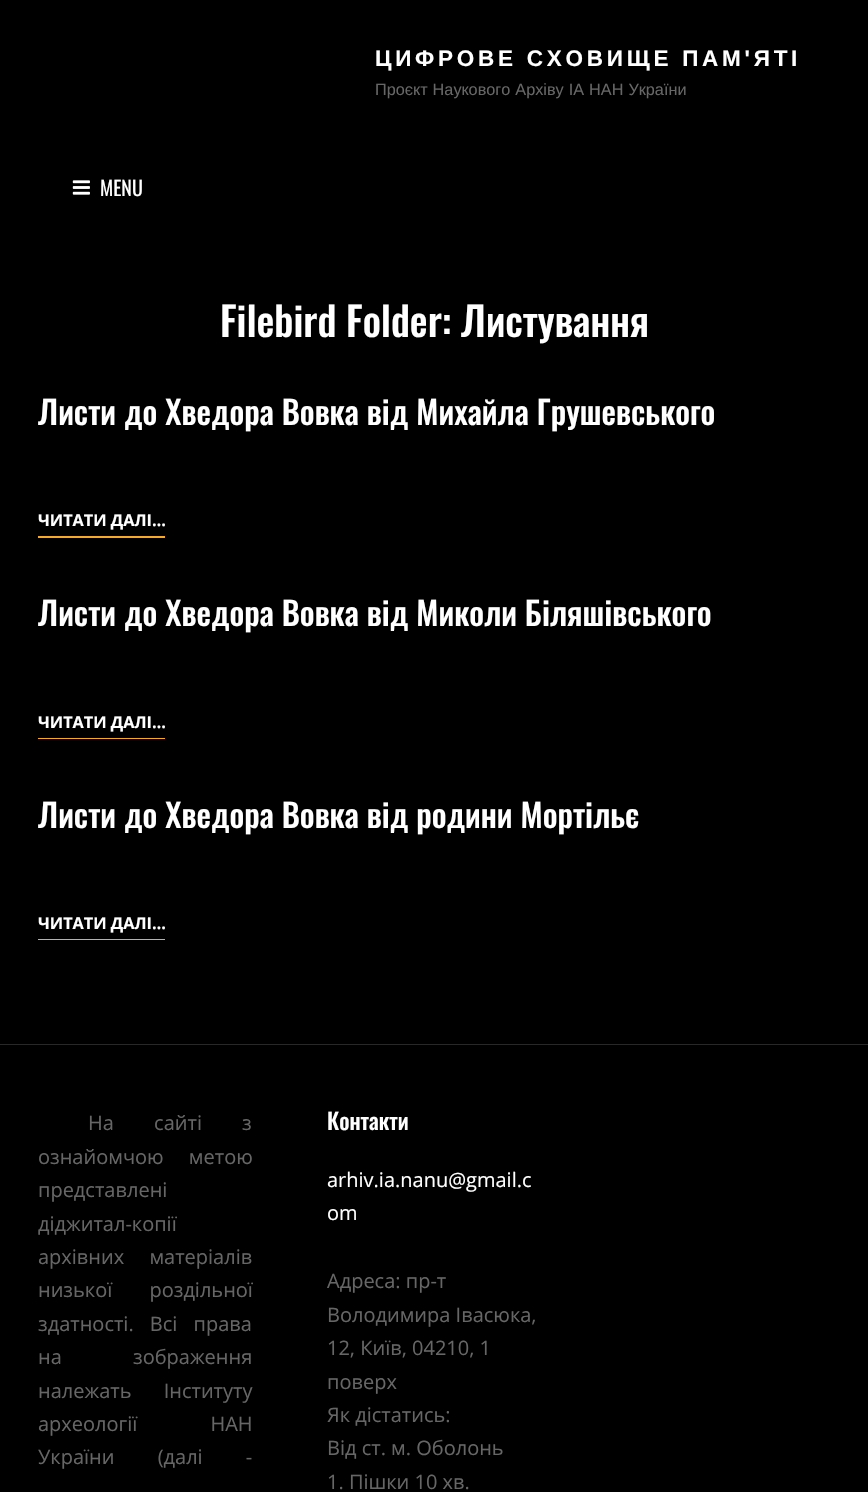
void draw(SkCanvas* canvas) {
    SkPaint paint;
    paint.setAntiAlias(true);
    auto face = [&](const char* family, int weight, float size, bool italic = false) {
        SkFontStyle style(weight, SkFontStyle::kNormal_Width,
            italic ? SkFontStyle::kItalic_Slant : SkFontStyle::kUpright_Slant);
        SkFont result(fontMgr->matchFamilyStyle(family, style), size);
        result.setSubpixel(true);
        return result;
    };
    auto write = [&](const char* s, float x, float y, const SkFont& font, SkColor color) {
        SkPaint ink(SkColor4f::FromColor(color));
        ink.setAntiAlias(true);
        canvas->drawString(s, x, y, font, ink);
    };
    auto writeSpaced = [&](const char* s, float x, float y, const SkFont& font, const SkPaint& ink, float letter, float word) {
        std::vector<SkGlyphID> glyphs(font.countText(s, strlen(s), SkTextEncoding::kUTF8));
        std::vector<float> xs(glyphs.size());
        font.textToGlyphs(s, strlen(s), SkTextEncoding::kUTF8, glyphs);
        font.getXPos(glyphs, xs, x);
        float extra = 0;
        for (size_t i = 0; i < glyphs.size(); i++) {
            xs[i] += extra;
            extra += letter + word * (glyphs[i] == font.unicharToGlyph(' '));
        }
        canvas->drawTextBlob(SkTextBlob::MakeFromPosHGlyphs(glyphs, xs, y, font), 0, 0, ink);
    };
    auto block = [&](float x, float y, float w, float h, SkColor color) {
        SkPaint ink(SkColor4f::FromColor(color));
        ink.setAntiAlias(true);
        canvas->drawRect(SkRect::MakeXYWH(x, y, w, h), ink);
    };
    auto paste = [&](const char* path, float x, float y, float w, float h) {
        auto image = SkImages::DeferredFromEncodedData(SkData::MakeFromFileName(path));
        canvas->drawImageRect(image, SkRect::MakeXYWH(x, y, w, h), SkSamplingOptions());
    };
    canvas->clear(SK_ColorBLACK);
    auto kFont1 = face("Liberation Sans", 700, 22.5f);
    paint.setColor(SK_ColorWHITE);
    writeSpaced("ЦИФРОВЕ СХОВИЩЕ ПАМ'ЯТІ", 375, 66, kFont1, paint, 3.75f, 0);
    auto kFont2 = face("Liberation Sans", 400, 16.25f);
    paint.setColor(SkColorSetRGB(102, 102, 102));
    writeSpaced("Проєкт Наукового Архіву ІА НАН України", 375, 95, kFont2, paint, 0, 0.5f);
    paste("pic1.png", 72, 180, 18, 15);
    auto kFont3 = face("Oswald", 400, 20);
    write("MENU", 100, 196, kFont3, SK_ColorWHITE);
    auto kFont4 = face("Oswald", 500, 40);
    write("Filebird Folder: Листування", 220, 337, kFont4, SK_ColorWHITE);
    auto kFont5 = face("Oswald", 500, 32.5f);
    write("Листи до Хведора Вовка від Михайла Грушевського", 38, 425, kFont5, SK_ColorWHITE);
    block(38, 536, 127, 2, SkColorSetRGB(249, 169, 38));
    auto kFont6 = face("Open Sans", 700, 16.25f);
    write("ЧИТАТИ ДАЛІ…", 38, 526, kFont6, SK_ColorWHITE);
    write("Листи до Хведора Вовка від Миколи Біляшівського", 38, 626, kFont5, SK_ColorWHITE);
    block(38, 738, 127, 1, SkColorSetRGB(249, 169, 38));
    write("ЧИТАТИ ДАЛІ…", 38, 728, kFont6, SK_ColorWHITE);
    write("Листи до Хведора Вовка від родини Мортільє", 38, 828, kFont5, SK_ColorWHITE);
    block(38, 939, 127, 1, SkColorSetRGB(249, 169, 38));
    write("ЧИТАТИ ДАЛІ…", 38, 929, kFont6, SK_ColorWHITE);
    block(0, 1044, 868, 1, SkColorSetRGB(40, 40, 40));
    auto kFont7 = face("Open Sans", 400, 20);
    writeSpaced("На сайті з", 88, 1130, kFont7, paint, 0, 35);
    writeSpaced("ознайомчою метою", 38, 1164, kFont7, paint, 0, 20);
    write("представлені", 38, 1197, kFont7, SkColorSetRGB(102, 102, 102));
    write("діджитал-копії", 38, 1231, kFont7, SkColorSetRGB(102, 102, 102));
    writeSpaced("архівних матеріалів", 38, 1264, kFont7, paint, 0, 20);
    writeSpaced("низької роздільної", 38, 1297, kFont7, paint, 0, 32);
    writeSpaced("здатності. Всі права", 38, 1331, kFont7, paint, 0, 11);
    writeSpaced("на зображення", 38, 1364, kFont7, paint, 0, 66);
    writeSpaced("належать Інституту", 38, 1398, kFont7, paint, 0, 27);
    writeSpaced("археології НАН", 38, 1431, kFont7, paint, 0, 68);
    writeSpaced("України (далі -", 38, 1464, kFont7, paint, 0, 38);
    auto kFont8 = face("Oswald", 500, 22.5f);
    write("Контакти", 327, 1130, kFont8, SK_ColorWHITE);
    write("arhiv.ia.nanu@gmail.c", 327, 1187, kFont7, SK_ColorWHITE);
    write("om", 327, 1220, kFont7, SK_ColorWHITE);
    write("Адреса: пр-т", 327, 1288, kFont7, SkColorSetRGB(102, 102, 102));
    write("Володимира Івасюка,", 327, 1322, kFont7, SkColorSetRGB(102, 102, 102));
    write("12, Київ, 04210, 1", 327, 1355, kFont7, SkColorSetRGB(102, 102, 102));
    write("поверх", 327, 1389, kFont7, SkColorSetRGB(102, 102, 102));
    write("Як дістатись:", 327, 1422, kFont7, SkColorSetRGB(102, 102, 102));
    write("Від ст. м. Оболонь", 327, 1455, kFont7, SkColorSetRGB(102, 102, 102));
    write("1. Пішки 10 хв.", 327, 1489, kFont7, SkColorSetRGB(102, 102, 102));
}
